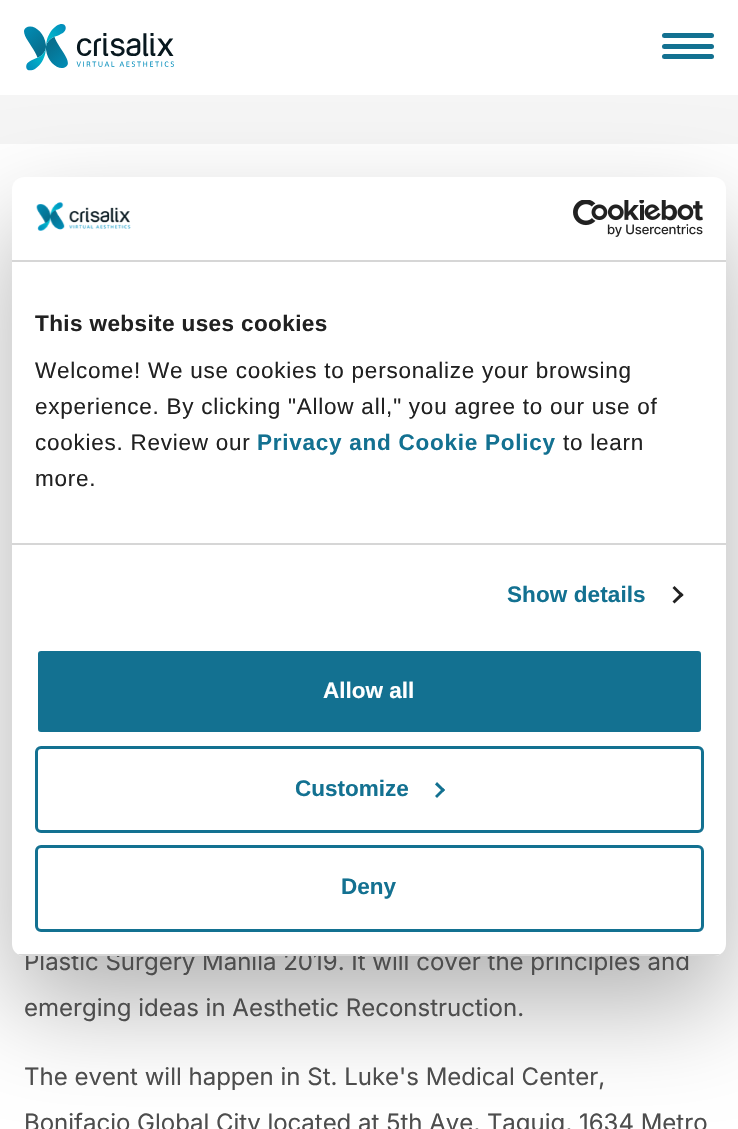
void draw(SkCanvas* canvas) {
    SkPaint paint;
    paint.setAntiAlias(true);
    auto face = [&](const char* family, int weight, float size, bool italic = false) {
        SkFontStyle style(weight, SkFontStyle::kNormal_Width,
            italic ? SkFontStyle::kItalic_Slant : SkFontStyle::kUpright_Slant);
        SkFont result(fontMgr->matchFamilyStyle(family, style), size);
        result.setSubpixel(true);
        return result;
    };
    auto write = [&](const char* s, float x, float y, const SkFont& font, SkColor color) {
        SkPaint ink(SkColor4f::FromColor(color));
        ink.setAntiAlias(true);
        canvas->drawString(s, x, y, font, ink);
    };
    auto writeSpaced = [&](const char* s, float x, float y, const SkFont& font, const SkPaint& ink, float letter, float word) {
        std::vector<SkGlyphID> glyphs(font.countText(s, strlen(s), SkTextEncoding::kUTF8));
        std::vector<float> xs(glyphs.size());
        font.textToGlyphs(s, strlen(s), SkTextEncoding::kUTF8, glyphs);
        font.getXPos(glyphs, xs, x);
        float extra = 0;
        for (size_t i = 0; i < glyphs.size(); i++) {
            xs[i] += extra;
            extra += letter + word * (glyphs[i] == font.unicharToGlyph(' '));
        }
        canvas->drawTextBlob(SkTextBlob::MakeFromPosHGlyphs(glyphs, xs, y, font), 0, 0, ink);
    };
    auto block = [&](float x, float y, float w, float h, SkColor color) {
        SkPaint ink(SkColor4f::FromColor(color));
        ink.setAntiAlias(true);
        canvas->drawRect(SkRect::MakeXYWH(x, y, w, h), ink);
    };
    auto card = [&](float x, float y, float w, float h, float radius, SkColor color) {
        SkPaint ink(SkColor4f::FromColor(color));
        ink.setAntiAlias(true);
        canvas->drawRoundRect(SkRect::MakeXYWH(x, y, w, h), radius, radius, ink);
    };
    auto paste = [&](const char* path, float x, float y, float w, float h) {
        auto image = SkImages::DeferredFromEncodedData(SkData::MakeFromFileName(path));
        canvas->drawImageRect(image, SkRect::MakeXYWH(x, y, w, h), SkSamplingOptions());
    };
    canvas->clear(SkColorSetRGB(245, 245, 245));
    block(0, 0, 738, 95, SK_ColorWHITE);
    paste("pic1.png", 24, 24, 150, 47);
    card(662, 44, 52, 5, 2.5f, SkColorSetRGB(19, 113, 145));
    card(662, 33, 52, 5, 2.5f, SkColorSetRGB(19, 113, 145));
    card(662, 54, 52, 5, 2.5f, SkColorSetRGB(19, 113, 145));
    block(0, 144, 738, 985, SK_ColorWHITE);
    paint.setColor(SkColorSetARGB(77, 0, 0, 0));
    paint.setMaskFilter(SkMaskFilter::MakeBlur(kNormal_SkBlurStyle, 51));
    canvas->drawRoundRect(SkRect::MakeXYWH(12, 225, 714, 779), 12, 12, paint);
    paint.setMaskFilter(nullptr);
    auto kFont1 = face("Inter", 400, 24);
    write("Plastic Surgery Manila 2019. It will cover the principles and", 24, 970, kFont1, SkColorSetRGB(77, 77, 77));
    card(12, 177, 714, 779, 12, SK_ColorWHITE);
    block(12, 260, 714, 2, SkColorSetRGB(214, 214, 214));
    paste("pic2.png", 36, 202, 95, 29);
    paste("pic3.png", 573, 200, 130, 37);
    block(12, 543, 714, 2, SkColorSetRGB(214, 214, 214));
    auto kFont2 = face("Liberation Sans", 700, 22.5f);
    paint.setColor(SkColorSetRGB(33, 33, 33));
    writeSpaced("This website uses cookies", 35, 331, kFont2, paint, 0.4f, 0);
    auto kFont3 = face("Liberation Sans", 400, 22.5f);
    writeSpaced("Welcome! We use cookies to personalize your browsing", 35, 378, kFont3, paint, 0.75f, 0);
    writeSpaced("experience. By clicking \"Allow all,\" you agree to our use of", 35, 414, kFont3, paint, 0.75f, 0);
    writeSpaced("cookies. Review our", 35, 450, kFont3, paint, 0.75f, 0);
    paint.setColor(SkColorSetRGB(19, 113, 145));
    writeSpaced("Privacy and Cookie Policy", 257, 450, kFont2, paint, 0.75f, 0);
    paint.setColor(SkColorSetRGB(33, 33, 33));
    writeSpaced("to learn", 563, 450, kFont3, paint, 0.75f, 0);
    writeSpaced("more.", 35, 486, kFont3, paint, 0.75f, 0);
    paint.setColor(SkColorSetRGB(19, 113, 145));
    writeSpaced("Show details", 507, 602, kFont2, paint, 0.1f, 0);
    paint.setColor(SkColorSetRGB(33, 33, 33));
    canvas->drawPath(SkPathBuilder().moveTo(674.5f, 586).lineTo(683.5f, 595).lineTo(681.5f, 597).lineTo(672.5f, 588).close().detach(), paint);
    canvas->drawPath(SkPathBuilder().moveTo(681.5f, 592.5f).lineTo(683.5f, 595).lineTo(674.5f, 603.5f).lineTo(672.5f, 601.5f).close().detach(), paint);
    canvas->save();
    canvas->clipPath(SkPathBuilder().moveTo(24, 177).lineTo(714, 177).cubicTo(720.5f, 177, 726, 182.5f, 726, 189).lineTo(726, 944).cubicTo(726, 950.5f, 720.5f, 956, 714, 956).lineTo(24, 956).cubicTo(17.5f, 956, 12, 950.5f, 12, 944).lineTo(12, 189).cubicTo(12, 182.5f, 17.5f, 177, 24, 177).close().detach(), true);
    block(12, 954, 714, 2, SkColorSetRGB(214, 214, 214));
    canvas->restore();
    paint.setColor(SkColorSetRGB(19, 113, 145));
    canvas->drawRoundRect(SkRect::MakeXYWH(36.5f, 649.5f, 666, 84), 4.5f, 4.5f, paint);
    paint.setStyle(SkPaint::kStroke_Style);
    paint.setStrokeWidth(3);
    paint.setColor(SK_ColorWHITE);
    canvas->drawRoundRect(SkRect::MakeXYWH(36.5f, 649.5f, 666, 84), 4.5f, 4.5f, paint);
    write("Allow all", 323, 698, kFont2, SK_ColorWHITE);
    paint.setColor(SkColorSetRGB(19, 113, 145));
    canvas->drawRoundRect(SkRect::MakeXYWH(36.5f, 747.5f, 666, 84), 4.5f, 4.5f, paint);
    write("Customize", 295, 796, kFont2, SkColorSetRGB(19, 113, 145));
    paint.setStyle(SkPaint::kFill_Style);
    canvas->drawPath(SkPathBuilder().moveTo(437, 782).lineTo(445, 790).lineTo(443, 792).lineTo(435, 784.5f).close().detach(), paint);
    canvas->drawPath(SkPathBuilder().moveTo(443, 788).lineTo(445, 790).lineTo(437, 798).lineTo(435, 796).close().detach(), paint);
    paint.setStyle(SkPaint::kStroke_Style);
    canvas->drawRoundRect(SkRect::MakeXYWH(36.5f, 846.5f, 666, 84), 4.5f, 4.5f, paint);
    write("Deny", 341, 894, kFont2, SkColorSetRGB(19, 113, 145));
    write("emerging ideas in Aesthetic Reconstruction.", 24, 1016, kFont1, SkColorSetRGB(77, 77, 77));
    write("The event will happen in St. Luke's Medical Center,", 24, 1085, kFont1, SkColorSetRGB(77, 77, 77));
    write("Bonifacio Global City located at 5th Ave, Taguig, 1634 Metro", 24, 1131, kFont1, SkColorSetRGB(77, 77, 77));
}
